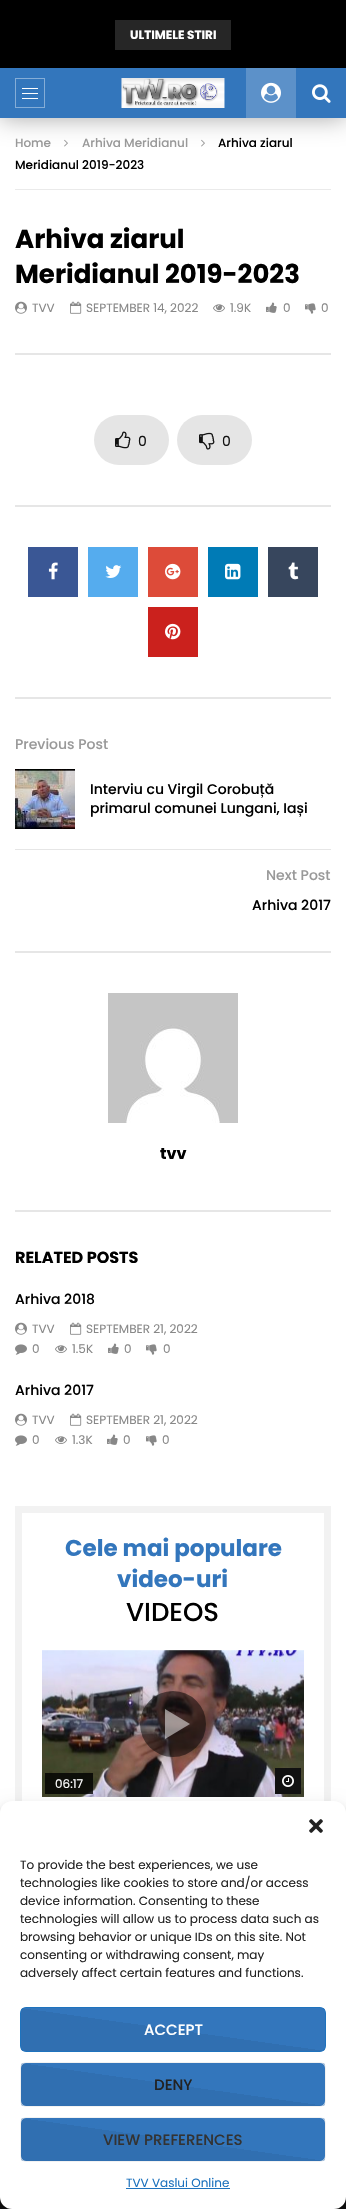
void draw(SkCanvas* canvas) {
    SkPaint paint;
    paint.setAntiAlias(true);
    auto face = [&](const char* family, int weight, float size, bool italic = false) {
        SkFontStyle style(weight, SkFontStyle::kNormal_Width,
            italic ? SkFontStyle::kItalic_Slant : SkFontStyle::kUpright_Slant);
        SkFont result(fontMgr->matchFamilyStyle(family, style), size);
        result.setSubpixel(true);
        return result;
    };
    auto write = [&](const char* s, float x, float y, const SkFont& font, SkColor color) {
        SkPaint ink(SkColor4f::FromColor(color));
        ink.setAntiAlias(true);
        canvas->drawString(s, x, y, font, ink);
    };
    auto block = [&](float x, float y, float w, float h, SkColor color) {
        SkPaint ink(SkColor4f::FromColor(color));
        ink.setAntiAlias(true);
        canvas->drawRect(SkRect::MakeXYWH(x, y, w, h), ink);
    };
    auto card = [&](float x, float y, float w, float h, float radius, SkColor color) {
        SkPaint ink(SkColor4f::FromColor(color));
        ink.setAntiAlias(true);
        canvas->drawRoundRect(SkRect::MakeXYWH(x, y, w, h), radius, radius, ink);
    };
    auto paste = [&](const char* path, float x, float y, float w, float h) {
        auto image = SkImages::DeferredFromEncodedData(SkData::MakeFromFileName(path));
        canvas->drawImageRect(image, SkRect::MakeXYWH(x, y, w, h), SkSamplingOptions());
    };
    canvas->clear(SK_ColorWHITE);
    block(0, 0, 346, 68, SK_ColorBLACK);
    paste("pic4.png", 64, 139, 4, 8);
    paste("pic4.png", 201, 139, 4, 8);
    paint.setColor(SkColorSetARGB(89, 0, 0, 0));
    paint.setMaskFilter(SkMaskFilter::MakeBlur(kNormal_SkBlurStyle, 12.5f));
    canvas->drawRect(SkRect::MakeXYWH(0, 68, 346, 50), paint);
    paint.setMaskFilter(nullptr);
    block(0, 68, 346, 50, SkColorSetRGB(51, 118, 188));
    paint.setStyle(SkPaint::kStroke_Style);
    paint.setStrokeWidth(1);
    paint.setColor(SkColorSetRGB(133, 173, 215));
    canvas->drawRect(SkRect::MakeXYWH(15.5f, 78.5f, 29, 29), paint);
    block(22, 88, 16, 1, SK_ColorWHITE);
    block(22, 93, 16, 1, SK_ColorWHITE);
    block(22, 98, 16, 1, SK_ColorWHITE);
    paste("pic1.png", 121, 78, 104, 30);
    block(246, 68, 50, 50, SkColorSetRGB(92, 145, 201));
    paste("pic2.png", 261, 82, 20, 21);
    paste("pic3.png", 312, 84, 19, 19);
    block(115, 20, 116, 30, SkColorSetRGB(38, 38, 38));
    auto kFont1 = face("Poppins", 700, 12);
    write("ULTIMELE STIRI", 130, 39, kFont1, SK_ColorWHITE);
    block(15, 189, 316, 1, SkColorSetRGB(234, 234, 234));
    auto kFont2 = face("Poppins", 500, 12);
    write("Home", 15, 147, kFont2, SkColorSetRGB(153, 153, 153));
    write("Arhiva Meridianul", 82, 147, kFont2, SkColorSetRGB(153, 153, 153));
    write("Arhiva ziarul", 218, 147, kFont2, SK_ColorBLACK);
    write("Meridianul 2019-2023", 15, 169, kFont2, SK_ColorBLACK);
    block(15, 353, 316, 2, SkColorSetRGB(230, 230, 230));
    auto kFont3 = face("Poppins", 700, 26);
    write("Arhiva ziarul", 15, 248, kFont3, SK_ColorBLACK);
    write("Meridianul 2019-2023", 15, 283, kFont3, SK_ColorBLACK);
    paste("pic5.png", 15, 301, 12, 13);
    auto kFont4 = face("Poppins", 400, 12);
    write("TVV", 32, 312, kFont4, SkColorSetRGB(136, 136, 136));
    paste("pic6.png", 70, 301, 12, 13);
    write("SEPTEMBER 14, 2022", 86, 312, kFont4, SkColorSetRGB(136, 136, 136));
    paste("pic7.png", 213, 304, 12, 8);
    write("1.9K", 230, 312, kFont4, SkColorSetRGB(136, 136, 136));
    paste("pic8.png", 266, 302, 11, 11);
    write("0", 283, 312, kFont4, SkColorSetRGB(136, 136, 136));
    paste("pic9.png", 305, 303, 11, 11);
    write("0", 321, 312, kFont4, SkColorSetRGB(136, 136, 136));
    block(15, 697, 316, 2, SkColorSetRGB(230, 230, 230));
    card(94, 415, 75, 50, 25, SkColorSetRGB(229, 229, 229));
    paste("pic10.png", 115, 431, 16, 18);
    auto kFont5 = face("Poppins", 400, 14);
    write("0", 138, 446, kFont5, SkColorSetRGB(17, 17, 17));
    card(177, 415, 75, 50, 25, SkColorSetRGB(229, 229, 229));
    paste("pic11.png", 199, 432, 16, 18);
    write("0", 222, 446, kFont5, SkColorSetRGB(17, 17, 17));
    block(15, 505, 316, 2, SkColorSetRGB(230, 230, 230));
    block(28, 547, 50, 50, SkColorSetRGB(58, 87, 149));
    paste("pic12.png", 48, 562, 10, 18);
    block(88, 547, 50, 50, SkColorSetRGB(85, 172, 238));
    paste("pic13.png", 105, 565, 17, 13);
    block(148, 547, 50, 50, SkColorSetRGB(221, 75, 57));
    paste("pic14.png", 165, 563, 16, 17);
    block(208, 547, 50, 50, SkColorSetRGB(0, 123, 182));
    paste("pic15.png", 225, 563, 16, 17);
    block(268, 547, 50, 50, SkColorSetRGB(55, 70, 93));
    paste("pic16.png", 288, 562, 11, 18);
    block(148, 607, 50, 50, SkColorSetRGB(203, 33, 29));
    paste("pic17.png", 165, 623, 16, 17);
    block(15, 951, 316, 2, SkColorSetRGB(230, 230, 230));
    auto kFont6 = face("Poppins", 500, 14);
    write("Previous Post", 15, 749, kFont6, SkColorSetRGB(153, 153, 153));
    paste("pic18.png", 15, 769, 60, 60);
    write("Interviu cu Virgil Corobuță", 90, 794, kFont6, SK_ColorBLACK);
    write("primarul comunei Lungani, Iași", 90, 813, kFont6, SK_ColorBLACK);
    block(15, 849, 316, 1, SkColorSetRGB(230, 230, 230));
    write("Next Post", 266, 880, kFont6, SkColorSetRGB(153, 153, 153));
    write("Arhiva 2017", 252, 910, kFont6, SK_ColorBLACK);
    paste("pic19.png", 108, 993, 130, 130);
    auto kFont7 = face("Poppins", 700, 16);
    write("tvv", 160, 1159, kFont7, SK_ColorBLACK);
    block(15, 1210, 316, 2, SkColorSetRGB(230, 230, 230));
    write("RELATED POSTS", 15, 1263, kFont7, SK_ColorBLACK);
    write("Arhiva 2018", 15, 1304, kFont6, SK_ColorBLACK);
    paste("pic5.png", 15, 1322, 12, 13);
    write("TVV", 32, 1333, kFont4, SkColorSetRGB(136, 136, 136));
    paste("pic6.png", 70, 1322, 12, 13);
    write("SEPTEMBER 21, 2022", 86, 1333, kFont4, SkColorSetRGB(136, 136, 136));
    paste("pic20.png", 15, 1344, 12, 11);
    write("0", 32, 1353, kFont4, SkColorSetRGB(136, 136, 136));
    paste("pic7.png", 55, 1345, 12, 8);
    write("1.5K", 72, 1353, kFont4, SkColorSetRGB(136, 136, 136));
    paste("pic8.png", 108, 1343, 11, 11);
    write("0", 124, 1353, kFont4, SkColorSetRGB(136, 136, 136));
    paste("pic9.png", 146, 1344, 11, 11);
    write("0", 163, 1353, kFont4, SkColorSetRGB(136, 136, 136));
    write("Arhiva 2017", 15, 1395, kFont6, SK_ColorBLACK);
    paste("pic5.png", 15, 1413, 12, 13);
    write("TVV", 32, 1424, kFont4, SkColorSetRGB(136, 136, 136));
    paste("pic6.png", 70, 1413, 12, 13);
    write("SEPTEMBER 21, 2022", 86, 1424, kFont4, SkColorSetRGB(136, 136, 136));
    paste("pic20.png", 15, 1435, 12, 11);
    write("0", 32, 1444, kFont4, SkColorSetRGB(136, 136, 136));
    paste("pic7.png", 55, 1436, 12, 8);
    write("1.3K", 72, 1444, kFont4, SkColorSetRGB(136, 136, 136));
    paste("pic8.png", 107, 1434, 11, 11);
    write("0", 123, 1444, kFont4, SkColorSetRGB(136, 136, 136));
    paste("pic9.png", 146, 1435, 11, 11);
    write("0", 162, 1444, kFont4, SkColorSetRGB(136, 136, 136));
    block(15, 1506, 316, 295, SkColorSetRGB(242, 242, 242));
    block(22, 1513, 302, 288, SK_ColorWHITE);
    auto kFont8 = face("Poppins", 700, 23);
    write("Cele mai populare", 65, 1556, kFont8, SkColorSetRGB(51, 118, 188));
    write("video-uri", 117, 1587, kFont8, SkColorSetRGB(51, 118, 188));
    auto kFont9 = face("Poppins", 500, 26);
    write("VIDEOS", 126, 1621, kFont9, SK_ColorBLACK);
    paste("pic21.png", 42, 1650, 262, 147);
    paint.setStyle(SkPaint::kFill_Style);
    paint.setColor(SkColorSetARGB(128, 0, 0, 0));
    canvas->drawCircle(173, 1724, 33, paint);
    paint.setColor(SkColorSetARGB(128, 255, 255, 255));
    canvas->drawPath(SkPathBuilder().moveTo(165, 1739).lineTo(165, 1709).lineTo(190, 1724).close().detach(), paint);
    block(45, 1773, 48, 21, SkColorSetARGB(204, 0, 0, 0));
    write("06:17", 55, 1788, kFont4, SK_ColorWHITE);
    block(275, 1768, 26, 26, SkColorSetRGB(17, 17, 17));
    paste("pic22.png", 282, 1775, 12, 12);
    block(0, 2197, 346, 12, SkColorSetRGB(17, 17, 17));
    paint.setColor(SkColorSetARGB(59, 0, 0, 0));
    paint.setMaskFilter(SkMaskFilter::MakeBlur(kNormal_SkBlurStyle, 3));
    canvas->drawRoundRect(SkRect::MakeXYWH(0, 1807, 346, 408), 12, 12, paint);
    paint.setMaskFilter(nullptr);
    paint.setColor(SkColorSetARGB(48, 0, 0, 0));
    paint.setMaskFilter(SkMaskFilter::MakeBlur(kNormal_SkBlurStyle, 10));
    canvas->drawRoundRect(SkRect::MakeXYWH(0, 1811, 346, 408), 12, 12, paint);
    paint.setMaskFilter(nullptr);
    card(0, 1801, 346, 408, 12, SK_ColorWHITE);
    paste("pic23.png", 309, 1819, 14, 14);
    write("To provide the best experiences, we use", 20, 1869, kFont4, SkColorSetRGB(34, 34, 34));
    write("technologies like cookies to store and/or access", 20, 1887, kFont4, SkColorSetRGB(34, 34, 34));
    write("device information. Consenting to these", 20, 1905, kFont4, SkColorSetRGB(34, 34, 34));
    write("technologies will allow us to process data such as", 20, 1923, kFont4, SkColorSetRGB(34, 34, 34));
    write("browsing behavior or unique IDs on this site. Not", 20, 1941, kFont4, SkColorSetRGB(34, 34, 34));
    write("consenting or withdrawing consent, may", 20, 1959, kFont4, SkColorSetRGB(34, 34, 34));
    write("adversely affect certain features and functions.", 20, 1977, kFont4, SkColorSetRGB(34, 34, 34));
    canvas->save();
    canvas->clipPath(SkPathBuilder().moveTo(26, 2007).lineTo(320, 2007).cubicTo(323.5f, 2007, 326, 2009.5f, 326, 2013).lineTo(326, 2046).cubicTo(326, 2049.5f, 323.5f, 2052, 320, 2052).lineTo(26, 2052).cubicTo(22.5f, 2052, 20, 2049.5f, 20, 2046).lineTo(20, 2013).cubicTo(20, 2009.5f, 22.5f, 2007, 26, 2007).close().detach(), true);
    {
        const SkColor colors[] = {SkColorSetRGB(51, 118, 188), SkColorSetRGB(48, 111, 177)};
        const float stops[] = {0.5f, 0.5f};
        const SkPoint ends[] = {{179, 1987}, {167, 2072}};
        paint.setShader(SkGradientShader::MakeLinear(ends, colors, stops, 2, SkTileMode::kClamp));
        paint.setAlpha(255);
    }
    canvas->drawRect(SkRect::MakeXYWH(21, 2008, 304, 43), paint);
    canvas->restore();
    paint.setStyle(SkPaint::kStroke_Style);
    paint.setShader(nullptr);
    paint.setColor(SkColorSetRGB(30, 115, 190));
    canvas->drawRoundRect(SkRect::MakeXYWH(20.5f, 2007.5f, 305, 44), 5.5f, 5.5f, paint);
    auto kFont10 = face("Poppins", 500, 15);
    write("ACCEPT", 144, 2035, kFont10, SK_ColorWHITE);
    canvas->save();
    canvas->clipPath(SkPathBuilder().moveTo(26, 2062).lineTo(320, 2062).cubicTo(323.5f, 2062, 326, 2064.5f, 326, 2068).lineTo(326, 2101).cubicTo(326, 2104.5f, 323.5f, 2107, 320, 2107).lineTo(26, 2107).cubicTo(22.5f, 2107, 20, 2104.5f, 20, 2101).lineTo(20, 2068).cubicTo(20, 2064.5f, 22.5f, 2062, 26, 2062).close().detach(), true);
    paint.setStyle(SkPaint::kFill_Style);
    {
        const SkColor colors[] = {SkColorSetRGB(51, 118, 188), SkColorSetRGB(48, 111, 177)};
        const float stops[] = {0.5f, 0.5f};
        const SkPoint ends[] = {{179, 2042}, {167, 2127}};
        paint.setShader(SkGradientShader::MakeLinear(ends, colors, stops, 2, SkTileMode::kClamp));
        paint.setAlpha(255);
    }
    canvas->drawRect(SkRect::MakeXYWH(21, 2063, 304, 43), paint);
    canvas->restore();
    paint.setStyle(SkPaint::kStroke_Style);
    paint.setShader(nullptr);
    paint.setColor(SkColorSetRGB(242, 242, 242));
    canvas->drawRoundRect(SkRect::MakeXYWH(20.5f, 2062.5f, 305, 44), 5.5f, 5.5f, paint);
    write("DENY", 154, 2090, kFont10, SkColorSetRGB(34, 34, 34));
    canvas->save();
    canvas->clipPath(SkPathBuilder().moveTo(26, 2117).lineTo(320, 2117).cubicTo(323.5f, 2117, 326, 2119.5f, 326, 2123).lineTo(326, 2156).cubicTo(326, 2159.5f, 323.5f, 2162, 320, 2162).lineTo(26, 2162).cubicTo(22.5f, 2162, 20, 2159.5f, 20, 2156).lineTo(20, 2123).cubicTo(20, 2119.5f, 22.5f, 2117, 26, 2117).close().detach(), true);
    paint.setStyle(SkPaint::kFill_Style);
    {
        const SkColor colors[] = {SkColorSetRGB(51, 118, 188), SkColorSetRGB(48, 111, 177)};
        const float stops[] = {0.5f, 0.5f};
        const SkPoint ends[] = {{179, 2097}, {167, 2182}};
        paint.setShader(SkGradientShader::MakeLinear(ends, colors, stops, 2, SkTileMode::kClamp));
        paint.setAlpha(255);
    }
    canvas->drawRect(SkRect::MakeXYWH(21, 2118, 304, 43), paint);
    canvas->restore();
    paint.setStyle(SkPaint::kStroke_Style);
    paint.setShader(nullptr);
    paint.setColor(SkColorSetRGB(242, 242, 242));
    canvas->drawRoundRect(SkRect::MakeXYWH(20.5f, 2117.5f, 305, 44), 5.5f, 5.5f, paint);
    write("VIEW PREFERENCES", 103, 2145, kFont10, SkColorSetRGB(51, 51, 51));
    write("TVV Vaslui Online", 126, 2187, kFont4, SkColorSetRGB(30, 115, 190));
    block(126, 2188, 104, 1, SkColorSetRGB(30, 115, 190));
}
